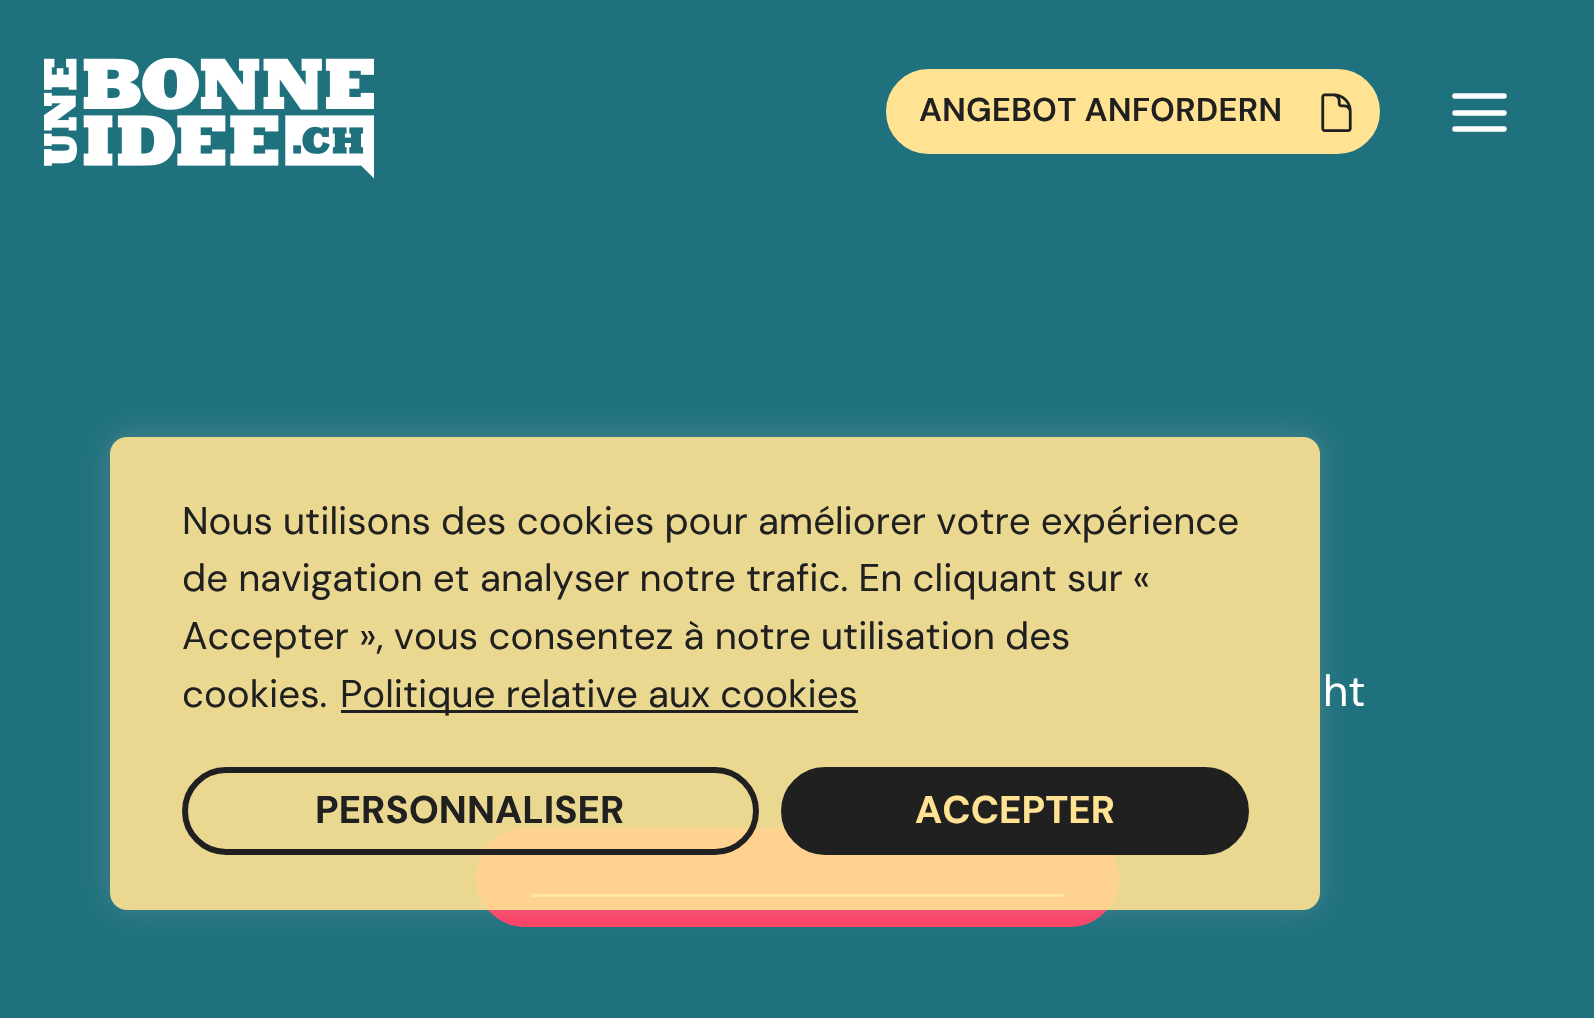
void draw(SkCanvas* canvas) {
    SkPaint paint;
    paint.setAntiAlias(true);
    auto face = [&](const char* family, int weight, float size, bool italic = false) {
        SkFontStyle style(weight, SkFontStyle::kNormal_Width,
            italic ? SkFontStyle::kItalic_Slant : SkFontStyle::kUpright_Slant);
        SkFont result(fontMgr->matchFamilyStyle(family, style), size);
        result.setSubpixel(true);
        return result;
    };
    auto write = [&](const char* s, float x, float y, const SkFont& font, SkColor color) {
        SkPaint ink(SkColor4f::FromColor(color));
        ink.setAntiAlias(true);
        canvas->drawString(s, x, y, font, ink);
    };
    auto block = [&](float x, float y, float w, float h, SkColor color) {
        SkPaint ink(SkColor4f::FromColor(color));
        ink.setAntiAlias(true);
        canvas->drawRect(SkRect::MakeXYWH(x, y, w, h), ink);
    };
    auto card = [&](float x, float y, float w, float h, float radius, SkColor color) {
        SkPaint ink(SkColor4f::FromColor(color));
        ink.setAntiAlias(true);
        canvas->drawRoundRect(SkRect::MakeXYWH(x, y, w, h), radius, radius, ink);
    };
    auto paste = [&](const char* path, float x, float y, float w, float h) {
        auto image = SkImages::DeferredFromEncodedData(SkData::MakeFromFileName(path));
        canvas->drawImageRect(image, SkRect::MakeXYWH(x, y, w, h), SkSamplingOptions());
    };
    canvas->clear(SkColorSetRGB(31, 113, 126));
    paste("pic1.png", 44, 58, 330, 121);
    paint.setColor(SkColorSetRGB(255, 226, 146));
    canvas->drawRoundRect(SkRect::MakeXYWH(883, 66, 500, 91), 45.5f, 45.5f, paint);
    paint.setStyle(SkPaint::kStroke_Style);
    paint.setStrokeWidth(6);
    paint.setColor(SkColorSetRGB(31, 113, 126));
    canvas->drawRoundRect(SkRect::MakeXYWH(883, 66, 500, 91), 45.5f, 45.5f, paint);
    auto kFont1 = face("DM Sans", 600, 33);
    write("ANGEBOT ANFORDERN", 919, 121, kFont1, SkColorSetRGB(32, 32, 32));
    paste("pic2.png", 1321, 93, 31, 39);
    paint.setStrokeWidth(5.5f);
    paint.setStrokeCap(SkPaint::kRound_Cap);
    paint.setStrokeJoin(SkPaint::kRound_Join);
    paint.setColor(SK_ColorWHITE);
    canvas->drawPath(SkPathBuilder().moveTo(1455, 113).lineTo(1504, 113).moveTo(1455, 96).lineTo(1504, 96).moveTo(1455, 129).lineTo(1504, 129).detach(), paint);
    paint.setStyle(SkPaint::kFill_Style);
    paint.setColor(SkColorSetRGB(255, 65, 103));
    canvas->drawRoundRect(SkRect::MakeXYWH(479, 831, 637, 93), 46.5f, 46.5f, paint);
    paint.setStyle(SkPaint::kStroke_Style);
    paint.setStrokeWidth(6);
    paint.setStrokeCap(SkPaint::kButt_Cap);
    paint.setStrokeJoin(SkPaint::kMiter_Join);
    canvas->drawRoundRect(SkRect::MakeXYWH(479, 831, 637, 93), 46.5f, 46.5f, paint);
    block(531, 894, 533, 3, SK_ColorWHITE);
    canvas->save();
    canvas->clipPath(SkPathBuilder(SkPathFillType::kEvenOdd).moveTo(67, 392).lineTo(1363, 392).lineTo(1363, 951).lineTo(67, 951).close().moveTo(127, 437).lineTo(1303, 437).cubicTo(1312.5f, 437, 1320, 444.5f, 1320, 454).lineTo(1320, 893).cubicTo(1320, 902.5f, 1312.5f, 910, 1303, 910).lineTo(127, 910).cubicTo(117.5f, 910, 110, 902.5f, 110, 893).lineTo(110, 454).cubicTo(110, 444.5f, 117.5f, 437, 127, 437).close().detach(), true);
    paint.setStyle(SkPaint::kFill_Style);
    paint.setColor(SkColorSetARGB(77, 172, 171, 171));
    paint.setMaskFilter(SkMaskFilter::MakeBlur(kNormal_SkBlurStyle, 14));
    canvas->drawRoundRect(SkRect::MakeXYWH(110, 435, 1210, 473), 17, 17, paint);
    paint.setMaskFilter(nullptr);
    canvas->restore();
    card(110, 437, 1210, 473, 17, SkColorSetARGB(230, 255, 226, 146));
    auto kFont2 = face("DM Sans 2", 400, 38.5f);
    write("Nous utilisons des cookies pour améliorer votre expérience", 182, 534, kFont2, SkColorSetRGB(32, 32, 32));
    write("de navigation et analyser notre trafic. En cliquant sur «", 182, 591, kFont2, SkColorSetRGB(32, 32, 32));
    write("Accepter », vous consentez à notre utilisation des", 182, 649, kFont2, SkColorSetRGB(32, 32, 32));
    write("cookies.", 182, 707, kFont2, SkColorSetRGB(32, 32, 32));
    block(341, 710, 517, 3, SkColorSetRGB(32, 32, 32));
    write("Politique relative aux cookies", 340, 707, kFont2, SkColorSetRGB(32, 32, 32));
    paint.setStyle(SkPaint::kStroke_Style);
    paint.setColor(SkColorSetRGB(32, 32, 32));
    canvas->drawRoundRect(SkRect::MakeXYWH(185, 770, 571, 82), 41, 41, paint);
    auto kFont3 = face("DM Sans", 700, 38.5f);
    write("PERSONNALISER", 315, 823, kFont3, SkColorSetRGB(32, 32, 32));
    paint.setStyle(SkPaint::kFill_Style);
    canvas->drawRoundRect(SkRect::MakeXYWH(784, 770, 462, 82), 41, 41, paint);
    paint.setStyle(SkPaint::kStroke_Style);
    canvas->drawRoundRect(SkRect::MakeXYWH(784, 770, 462, 82), 41, 41, paint);
    write("ACCEPTER", 915, 823, kFont3, SkColorSetRGB(255, 226, 146));
    auto kFont4 = face("DM Sans", 400, 44);
    write("ht", 1323, 706, kFont4, SK_ColorWHITE);
}
